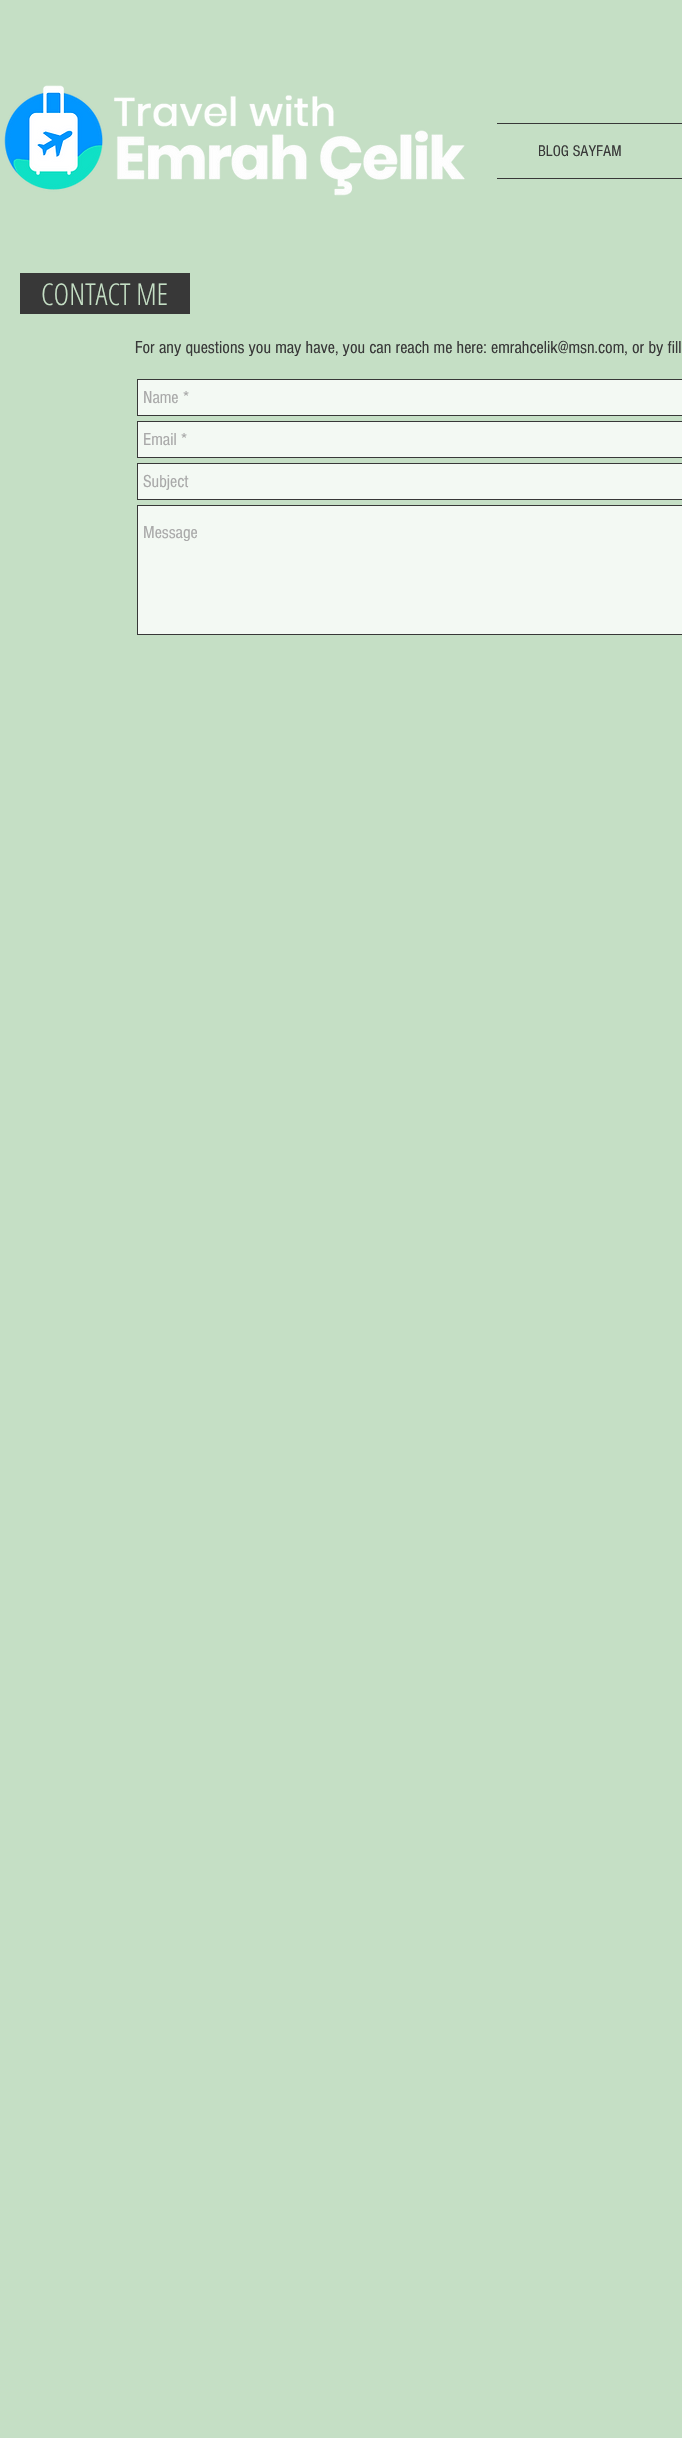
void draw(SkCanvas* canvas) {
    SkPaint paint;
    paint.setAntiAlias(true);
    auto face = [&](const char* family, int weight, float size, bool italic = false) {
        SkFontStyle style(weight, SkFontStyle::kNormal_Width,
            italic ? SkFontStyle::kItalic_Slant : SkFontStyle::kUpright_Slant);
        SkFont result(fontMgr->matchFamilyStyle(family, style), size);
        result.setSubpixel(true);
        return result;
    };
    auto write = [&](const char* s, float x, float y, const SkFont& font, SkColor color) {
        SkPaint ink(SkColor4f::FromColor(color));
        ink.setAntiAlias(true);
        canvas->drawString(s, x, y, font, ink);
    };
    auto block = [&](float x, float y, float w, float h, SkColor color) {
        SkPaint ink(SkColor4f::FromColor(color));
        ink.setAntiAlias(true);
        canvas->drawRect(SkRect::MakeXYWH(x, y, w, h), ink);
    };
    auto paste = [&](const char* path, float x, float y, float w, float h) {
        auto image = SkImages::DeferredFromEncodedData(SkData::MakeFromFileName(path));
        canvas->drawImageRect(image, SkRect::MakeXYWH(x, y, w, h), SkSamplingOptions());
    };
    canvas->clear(SkColorSetRGB(197, 223, 197));
    paste("pic1.png", 4, 85, 461, 111);
    block(497, 123, 185, 1, SkColorSetRGB(56, 56, 56));
    block(497, 178, 185, 1, SkColorSetRGB(56, 56, 56));
    auto kFont1 = face("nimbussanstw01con", 400, 16);
    write("BLOG SAYFAM", 538, 156, kFont1, SkColorSetRGB(56, 56, 56));
    block(20, 273, 170, 41, SkColorSetRGB(56, 56, 56));
    auto kFont2 = face("Open Sans Condensed", 300, 30);
    write("CONTACT ME", 41, 305, kFont2, SkColorSetRGB(197, 223, 197));
    auto kFont3 = face("nimbussanstw01con", 400, 18);
    write("For any questions you may have, you can reach me here: emrahcelik@msn.com, or by fill", 135, 353, kFont3, SkColorSetRGB(56, 56, 56));
    paint.setColor(SkColorSetRGB(243, 249, 243));
    canvas->drawRect(SkRect::MakeXYWH(137.5f, 379.5f, 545, 36), paint);
    paint.setStyle(SkPaint::kStroke_Style);
    paint.setStrokeWidth(1);
    paint.setColor(SkColorSetRGB(56, 56, 56));
    canvas->drawRect(SkRect::MakeXYWH(137.5f, 379.5f, 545, 36), paint);
    write("Name *", 143, 403, kFont3, SkColorSetRGB(169, 169, 169));
    paint.setStyle(SkPaint::kFill_Style);
    paint.setColor(SkColorSetRGB(243, 249, 243));
    canvas->drawRect(SkRect::MakeXYWH(137.5f, 421.5f, 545, 36), paint);
    paint.setStyle(SkPaint::kStroke_Style);
    paint.setColor(SkColorSetRGB(56, 56, 56));
    canvas->drawRect(SkRect::MakeXYWH(137.5f, 421.5f, 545, 36), paint);
    write("Email *", 143, 445, kFont3, SkColorSetRGB(169, 169, 169));
    paint.setStyle(SkPaint::kFill_Style);
    paint.setColor(SkColorSetRGB(243, 249, 243));
    canvas->drawRect(SkRect::MakeXYWH(137.5f, 463.5f, 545, 36), paint);
    paint.setStyle(SkPaint::kStroke_Style);
    paint.setColor(SkColorSetRGB(56, 56, 56));
    canvas->drawRect(SkRect::MakeXYWH(137.5f, 463.5f, 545, 36), paint);
    write("Subject", 143, 487, kFont3, SkColorSetRGB(169, 169, 169));
    paint.setStyle(SkPaint::kFill_Style);
    paint.setColor(SkColorSetRGB(243, 249, 243));
    canvas->drawRect(SkRect::MakeXYWH(137.5f, 505.5f, 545, 129), paint);
    paint.setStyle(SkPaint::kStroke_Style);
    paint.setColor(SkColorSetRGB(56, 56, 56));
    canvas->drawRect(SkRect::MakeXYWH(137.5f, 505.5f, 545, 129), paint);
    write("Message", 143, 538, kFont3, SkColorSetRGB(169, 169, 169));
}
